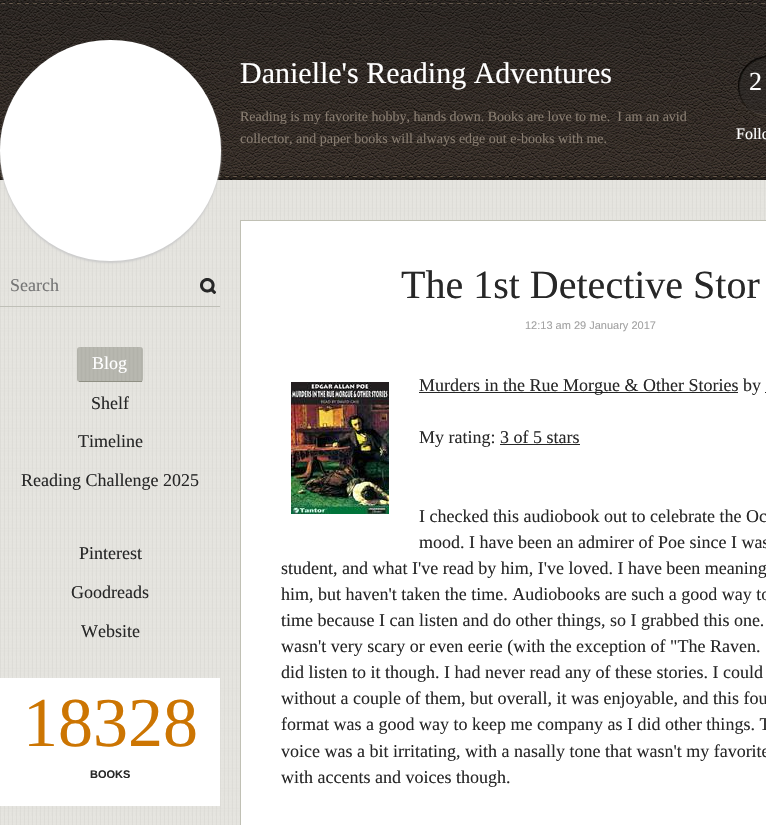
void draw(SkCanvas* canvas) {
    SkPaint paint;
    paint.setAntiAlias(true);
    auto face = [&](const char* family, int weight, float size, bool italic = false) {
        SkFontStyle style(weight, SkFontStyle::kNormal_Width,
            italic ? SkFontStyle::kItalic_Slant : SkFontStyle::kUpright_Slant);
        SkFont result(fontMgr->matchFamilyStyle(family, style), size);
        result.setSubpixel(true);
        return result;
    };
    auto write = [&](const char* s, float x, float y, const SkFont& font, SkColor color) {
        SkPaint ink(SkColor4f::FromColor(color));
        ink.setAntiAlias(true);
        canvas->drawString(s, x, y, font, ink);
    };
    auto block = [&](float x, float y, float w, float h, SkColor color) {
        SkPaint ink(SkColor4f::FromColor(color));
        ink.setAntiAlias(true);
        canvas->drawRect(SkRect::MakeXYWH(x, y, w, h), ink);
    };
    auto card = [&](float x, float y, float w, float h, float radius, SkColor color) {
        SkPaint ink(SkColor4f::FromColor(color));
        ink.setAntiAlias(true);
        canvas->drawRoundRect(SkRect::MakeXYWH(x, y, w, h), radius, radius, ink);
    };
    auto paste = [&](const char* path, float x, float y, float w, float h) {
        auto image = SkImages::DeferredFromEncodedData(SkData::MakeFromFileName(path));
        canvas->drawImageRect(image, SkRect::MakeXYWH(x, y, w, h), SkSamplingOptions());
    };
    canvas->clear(SK_ColorWHITE);
    paste("pic1.png", 0, 180, 766, 645);
    paste("pic2.png", 0, 0, 766, 180);
    paint.setColor(SkColorSetRGB(204, 204, 204));
    paint.setMaskFilter(SkMaskFilter::MakeBlur(kNormal_SkBlurStyle, 1));
    canvas->drawRoundRect(SkRect::MakeXYWH(0, 42, 221, 221), 110, 110, paint);
    paint.setMaskFilter(nullptr);
    card(0, 40, 221, 221, 110, SK_ColorWHITE);
    auto kFont1 = face("Liberation Serif", 400, 30);
    write("Danielle's Reading Adventures", 240, 83, kFont1, SK_ColorWHITE);
    paste("pic3.png", 738, 55, 28, 61);
    auto kFont2 = face("Liberation Serif", 400, 26);
    write("2", 749, 90, kFont2, SK_ColorWHITE);
    auto kFont3 = face("Liberation Serif", 400, 16);
    write("Follo", 736, 139, kFont3, SK_ColorWHITE);
    auto kFont4 = face("Liberation Serif", 400, 14);
    write("Reading is my favorite hobby, hands down. Books are love to me.  I am an avid", 240, 121, kFont4, SkColorSetRGB(136, 125, 113));
    write("collector, and paper books will always edge out e-books with me.", 240, 143, kFont4, SkColorSetRGB(136, 125, 113));
    block(0, 306, 220, 1, SkColorSetRGB(191, 191, 183));
    auto kFont5 = face("Liberation Serif", 400, 18);
    write("Search", 10, 291, kFont5, SkColorSetRGB(117, 117, 117));
    paste("pic4.png", 200, 278, 16, 16);
    paste("pic5.png", 77, 347, 66, 35);
    block(79, 381, 63, 1, SkColorSetRGB(143, 143, 131));
    write("Blog", 92, 369, kFont5, SK_ColorWHITE);
    write("Shelf", 91, 409, kFont5, SkColorSetRGB(39, 39, 39));
    write("Timeline", 78, 447, kFont5, SkColorSetRGB(39, 39, 39));
    write("Reading Challenge 2025", 21, 486, kFont5, SkColorSetRGB(39, 39, 39));
    write("Pinterest", 79, 559, kFont5, SkColorSetRGB(39, 39, 39));
    write("Goodreads", 71, 598, kFont5, SkColorSetRGB(39, 39, 39));
    write("Website", 81, 637, kFont5, SkColorSetRGB(39, 39, 39));
    block(0, 678, 220, 128, SK_ColorWHITE);
    auto kFont6 = face("Liberation Serif", 400, 70);
    write("18328", 23, 746, kFont6, SkColorSetRGB(204, 117, 2));
    auto kFont7 = face("Liberation Sans", 700, 11);
    write("BOOKS", 90, 778, kFont7, SkColorSetRGB(39, 39, 39));
    paint.setColor(SK_ColorWHITE);
    canvas->drawRect(SkRect::MakeXYWH(240.5f, 220.5f, 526, 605), paint);
    paint.setStyle(SkPaint::kStroke_Style);
    paint.setStrokeWidth(1);
    paint.setColor(SkColorSetRGB(192, 192, 180));
    canvas->drawRect(SkRect::MakeXYWH(240.5f, 220.5f, 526, 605), paint);
    auto kFont8 = face("Liberation Serif", 400, 40);
    write("The 1st Detective Stor", 401, 298, kFont8, SkColorSetRGB(39, 39, 39));
    auto kFont9 = face("Liberation Sans", 400, 11);
    write("12:13 am 29 January 2017", 525, 329, kFont9, SkColorSetRGB(162, 162, 162));
    paste("pic6.png", 291, 382, 98, 132);
    block(419, 392, 319, 1, SkColorSetRGB(39, 39, 39));
    write("Murders in the Rue Morgue & Other Stories by", 419, 391, kFont5, SkColorSetRGB(39, 39, 39));
    block(765, 392, 1, 1, SkColorSetRGB(39, 39, 39));
    write("My rating: 3 of 5 stars", 419, 443, kFont5, SkColorSetRGB(39, 39, 39));
    block(500, 444, 80, 1, SkColorSetRGB(39, 39, 39));
    write("I checked this audiobook out to celebrate the Oc", 419, 522, kFont5, SkColorSetRGB(39, 39, 39));
    write("mood. I have been an admirer of Poe since I was", 419, 548, kFont5, SkColorSetRGB(39, 39, 39));
    write("student, and what I've read by him, I've loved. I have been meaning", 281, 574, kFont5, SkColorSetRGB(39, 39, 39));
    write("him, but haven't taken the time. Audiobooks are such a good way to", 281, 600, kFont5, SkColorSetRGB(39, 39, 39));
    write("time because I can listen and do other things, so I grabbed this one.", 281, 626, kFont5, SkColorSetRGB(39, 39, 39));
    write("wasn't very scary or even eerie (with the exception of \"The Raven.", 281, 652, kFont5, SkColorSetRGB(39, 39, 39));
    write("did listen to it though. I had never read any of these stories. I could", 281, 678, kFont5, SkColorSetRGB(39, 39, 39));
    write("without a couple of them, but overall, it was enjoyable, and this fou", 281, 704, kFont5, SkColorSetRGB(39, 39, 39));
    write("format was a good way to keep me company as I did other things. T", 281, 730, kFont5, SkColorSetRGB(39, 39, 39));
    write("voice was a bit irritating, with a nasally tone that wasn't my favorite", 281, 757, kFont5, SkColorSetRGB(39, 39, 39));
    write("with accents and voices though.", 281, 783, kFont5, SkColorSetRGB(39, 39, 39));
}
